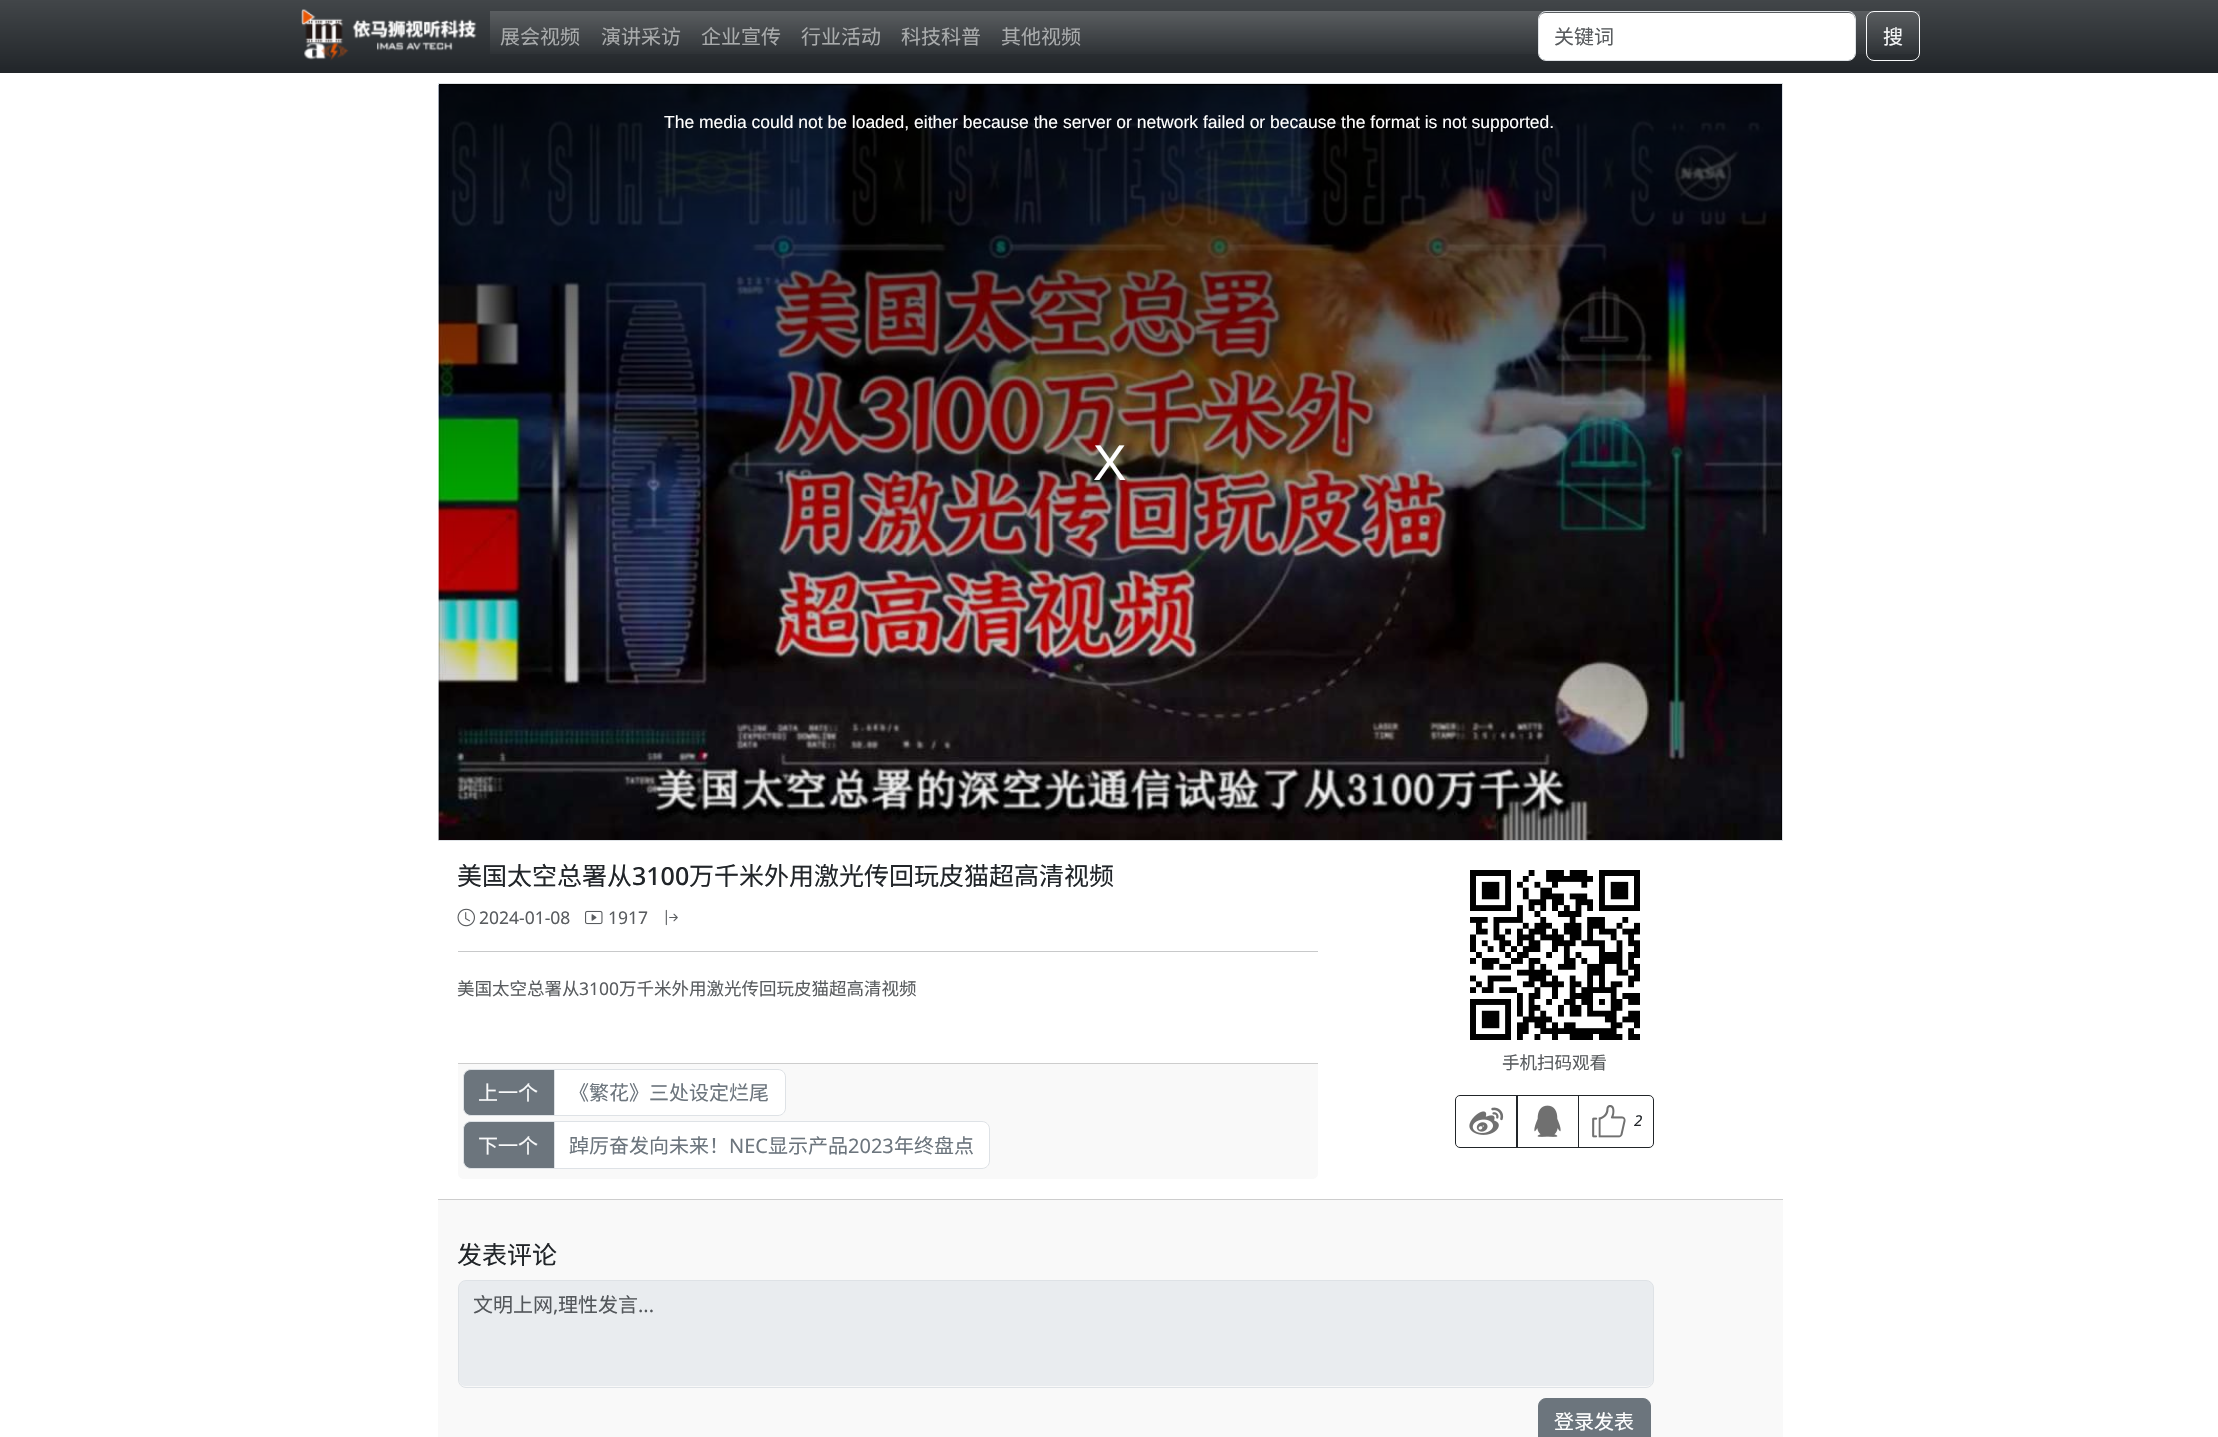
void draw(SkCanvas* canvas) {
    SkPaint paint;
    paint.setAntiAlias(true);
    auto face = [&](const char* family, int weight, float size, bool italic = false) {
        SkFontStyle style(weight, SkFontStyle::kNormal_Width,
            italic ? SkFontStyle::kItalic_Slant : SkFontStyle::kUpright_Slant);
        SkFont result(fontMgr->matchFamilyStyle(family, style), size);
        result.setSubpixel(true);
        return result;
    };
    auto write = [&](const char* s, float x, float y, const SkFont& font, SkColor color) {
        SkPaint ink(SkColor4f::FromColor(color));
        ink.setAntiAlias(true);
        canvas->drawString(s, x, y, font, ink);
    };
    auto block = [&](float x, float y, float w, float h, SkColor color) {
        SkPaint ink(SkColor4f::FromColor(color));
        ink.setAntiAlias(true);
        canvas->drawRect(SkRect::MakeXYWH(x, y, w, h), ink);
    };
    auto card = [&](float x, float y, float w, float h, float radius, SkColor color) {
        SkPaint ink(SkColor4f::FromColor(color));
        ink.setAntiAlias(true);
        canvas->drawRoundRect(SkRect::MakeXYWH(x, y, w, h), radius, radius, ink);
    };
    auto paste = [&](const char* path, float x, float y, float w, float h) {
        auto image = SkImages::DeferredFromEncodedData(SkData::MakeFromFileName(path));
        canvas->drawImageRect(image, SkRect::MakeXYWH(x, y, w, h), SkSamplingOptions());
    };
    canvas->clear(SK_ColorWHITE);
    {
        const SkColor colors[] = {SkColorSetRGB(66, 70, 73), SkColorSetRGB(33, 37, 41)};
        const float stops[] = {0, 1};
        const SkPoint ends[] = {{1109, 0}, {1109, 73}};
        paint.setShader(SkGradientShader::MakeLinear(ends, colors, stops, 2, SkTileMode::kClamp));
        paint.setAlpha(255);
    }
    canvas->drawRect(SkRect::MakeXYWH(0, 0, 2218, 73), paint);
    paste("pic1.png", 301, 9, 176, 52);
    {
        const SkColor colors[] = {SkColorSetARGB(38, 255, 255, 255), SkColorSetARGB(0, 255, 255, 255)};
        const float stops[] = {0, 1};
        const SkPoint ends[] = {{1205, 11}, {1205, 61}};
        paint.setShader(SkGradientShader::MakeLinear(ends, colors, stops, 2, SkTileMode::kClamp));
        paint.setAlpha(255);
    }
    canvas->drawRect(SkRect::MakeXYWH(490, 11, 1430, 43), paint);
    auto kFont1 = face("Noto Sans CJK SC", 400, 20);
    write("展会视频", 500, 44, kFont1, SkColorSetRGB(169, 171, 172));
    write("演讲采访", 601, 44, kFont1, SkColorSetRGB(169, 171, 172));
    write("企业宣传", 701, 44, kFont1, SkColorSetRGB(169, 171, 172));
    write("行业活动", 801, 44, kFont1, SkColorSetRGB(169, 171, 172));
    write("科技科普", 901, 44, kFont1, SkColorSetRGB(169, 171, 172));
    write("其他视频", 1001, 44, kFont1, SkColorSetRGB(169, 171, 172));
    card(1539, 13, 316, 47, 6, SK_ColorWHITE);
    paint.setStyle(SkPaint::kStroke_Style);
    paint.setStrokeWidth(1);
    paint.setShader(nullptr);
    paint.setColor(SkColorSetRGB(222, 226, 230));
    canvas->drawRoundRect(SkRect::MakeXYWH(1538.5f, 11.5f, 317, 49), 7.5f, 7.5f, paint);
    write("关键词", 1554, 44, kFont1, SkColorSetRGB(89, 92, 95));
    paint.setColor(SkColorSetRGB(248, 249, 250));
    canvas->drawRoundRect(SkRect::MakeXYWH(1866.5f, 11.5f, 53, 49), 7.5f, 7.5f, paint);
    write("搜", 1883, 44, kFont1, SkColorSetRGB(248, 249, 250));
    block(1781, 84, 1, 756, SK_ColorBLACK);
    paint.setColor(SkColorSetRGB(222, 226, 230));
    canvas->drawRect(SkRect::MakeXYWH(438.5f, 83.5f, 1344, 757), paint);
    block(439, 84, 1342, 1, SK_ColorBLACK);
    paste("pic3.png", 438, 85, 1344, 755);
    paste("pic2.png", 438, 85, 1344, 755);
    auto kFont2 = face("Liberation Sans", 400, 17.5f);
    write("The media could not be loaded, either because the server or network failed or because the format is not supported.", 664, 128, kFont2, SK_ColorWHITE);
    auto kFont3 = face("Liberation Sans", 400, 50);
    write("X", 1093, 480, kFont3, SK_ColorWHITE);
    auto kFont4 = face("Noto Sans CJK SC", 400, 25);
    write("美国太空总署从", 457, 885, kFont4, SkColorSetRGB(33, 37, 41));
    auto kFont5 = face("Noto Sans", 500, 25);
    write("3100", 632, 885, kFont5, SkColorSetRGB(33, 37, 41));
    write("万千米外用激光传回玩皮猫超高清视频", 689, 885, kFont4, SkColorSetRGB(33, 37, 41));
    paste("pic4.png", 457, 908, 18, 19);
    auto kFont6 = face("Noto Sans", 400, 17.5f);
    write("2024-01-08", 479, 924, kFont6, SkColorSetRGB(89, 92, 95));
    paste("pic5.png", 585, 910, 18, 15);
    write("1917", 608, 924, kFont6, SkColorSetRGB(89, 92, 95));
    paste("pic6.png", 665, 909, 13, 17);
    block(458, 951, 860, 1, SkColorSetRGB(200, 201, 202));
    auto kFont7 = face("Noto Sans CJK SC", 400, 17.5f);
    write("美国太空总署从", 457, 995, kFont7, SkColorSetRGB(89, 92, 95));
    write("3100", 579, 995, kFont6, SkColorSetRGB(89, 92, 95));
    write("万千米外用激光传回玩皮猫超高清视频", 619, 995, kFont7, SkColorSetRGB(89, 92, 95));
    paint.setStyle(SkPaint::kFill_Style);
    paint.setColor(SkColorSetRGB(249, 249, 249));
    canvas->drawPath(SkPathBuilder().moveTo(458, 1063).lineTo(1318, 1063).lineTo(1318, 1173).cubicTo(1318, 1176.5f, 1315.5f, 1179, 1312, 1179).lineTo(464, 1179).cubicTo(460.5f, 1179, 458, 1176.5f, 458, 1173).close().detach(), paint);
    block(458, 1063, 860, 1, SkColorSetRGB(205, 205, 205));
    paint.setColor(SkColorSetRGB(108, 117, 125));
    canvas->drawPath(SkPathBuilder().moveTo(471, 1069.5f).lineTo(554.5f, 1069.5f).lineTo(554.5f, 1115.5f).lineTo(471, 1115.5f).cubicTo(467, 1115.5f, 463.5f, 1112, 463.5f, 1108).lineTo(463.5f, 1077).cubicTo(463.5f, 1073, 467, 1069.5f, 471, 1069.5f).close().detach(), paint);
    paint.setStyle(SkPaint::kStroke_Style);
    paint.setColor(SkColorSetRGB(222, 226, 230));
    canvas->drawPath(SkPathBuilder().moveTo(471, 1069.5f).lineTo(554.5f, 1069.5f).lineTo(554.5f, 1115.5f).lineTo(471, 1115.5f).cubicTo(467, 1115.5f, 463.5f, 1112, 463.5f, 1108).lineTo(463.5f, 1077).cubicTo(463.5f, 1073, 467, 1069.5f, 471, 1069.5f).close().detach(), paint);
    write("上一个", 478, 1100, kFont1, SkColorSetRGB(248, 249, 250));
    paint.setStyle(SkPaint::kFill_Style);
    paint.setColor(SK_ColorWHITE);
    canvas->drawPath(SkPathBuilder().moveTo(554.5f, 1069.5f).lineTo(778, 1069.5f).cubicTo(782, 1069.5f, 785.5f, 1073, 785.5f, 1077).lineTo(785.5f, 1108).cubicTo(785.5f, 1112, 782, 1115.5f, 778, 1115.5f).lineTo(554.5f, 1115.5f).close().detach(), paint);
    paint.setStyle(SkPaint::kStroke_Style);
    paint.setColor(SkColorSetRGB(222, 226, 230));
    canvas->drawPath(SkPathBuilder().moveTo(554.5f, 1069.5f).lineTo(778, 1069.5f).cubicTo(782, 1069.5f, 785.5f, 1073, 785.5f, 1077).lineTo(785.5f, 1108).cubicTo(785.5f, 1112, 782, 1115.5f, 778, 1115.5f).lineTo(554.5f, 1115.5f).close().detach(), paint);
    write("《繁花》三处设定烂尾", 569, 1100, kFont1, SkColorSetRGB(108, 117, 125));
    paint.setStyle(SkPaint::kFill_Style);
    paint.setColor(SkColorSetRGB(108, 117, 125));
    canvas->drawPath(SkPathBuilder().moveTo(471, 1121.5f).lineTo(554.5f, 1121.5f).lineTo(554.5f, 1168.5f).lineTo(471, 1168.5f).cubicTo(467, 1168.5f, 463.5f, 1165, 463.5f, 1161).lineTo(463.5f, 1129).cubicTo(463.5f, 1125, 467, 1121.5f, 471, 1121.5f).close().detach(), paint);
    paint.setStyle(SkPaint::kStroke_Style);
    paint.setColor(SkColorSetRGB(222, 226, 230));
    canvas->drawPath(SkPathBuilder().moveTo(471, 1121.5f).lineTo(554.5f, 1121.5f).lineTo(554.5f, 1168.5f).lineTo(471, 1168.5f).cubicTo(467, 1168.5f, 463.5f, 1165, 463.5f, 1161).lineTo(463.5f, 1129).cubicTo(463.5f, 1125, 467, 1121.5f, 471, 1121.5f).close().detach(), paint);
    write("下一个", 478, 1153, kFont1, SkColorSetRGB(248, 249, 250));
    paint.setStyle(SkPaint::kFill_Style);
    paint.setColor(SK_ColorWHITE);
    canvas->drawPath(SkPathBuilder().moveTo(554.5f, 1121.5f).lineTo(982, 1121.5f).cubicTo(986, 1121.5f, 989.5f, 1125, 989.5f, 1129).lineTo(989.5f, 1161).cubicTo(989.5f, 1165, 986, 1168.5f, 982, 1168.5f).lineTo(554.5f, 1168.5f).close().detach(), paint);
    paint.setStyle(SkPaint::kStroke_Style);
    paint.setColor(SkColorSetRGB(222, 226, 230));
    canvas->drawPath(SkPathBuilder().moveTo(554.5f, 1121.5f).lineTo(982, 1121.5f).cubicTo(986, 1121.5f, 989.5f, 1125, 989.5f, 1129).lineTo(989.5f, 1161).cubicTo(989.5f, 1165, 986, 1168.5f, 982, 1168.5f).lineTo(554.5f, 1168.5f).close().detach(), paint);
    write("踔厉奋发向未来！", 569, 1153, kFont1, SkColorSetRGB(108, 117, 125));
    auto kFont8 = face("Noto Sans", 400, 20);
    write("NEC", 729, 1153, kFont8, SkColorSetRGB(108, 117, 125));
    write("显示产品", 768, 1153, kFont1, SkColorSetRGB(108, 117, 125));
    write("2023", 848, 1153, kFont8, SkColorSetRGB(108, 117, 125));
    write("年终盘点", 894, 1153, kFont1, SkColorSetRGB(108, 117, 125));
    paste("pic7.png", 1470, 870, 170, 170);
    write("手机扫码观看", 1502, 1069, kFont7, SkColorSetRGB(89, 92, 95));
    paint.setColor(SkColorSetRGB(33, 37, 41));
    canvas->drawPath(SkPathBuilder().moveTo(1460, 1095.5f).lineTo(1517.5f, 1095.5f).lineTo(1517.5f, 1147.5f).lineTo(1460, 1147.5f).cubicTo(1457.5f, 1147.5f, 1455.5f, 1145.5f, 1455.5f, 1143).lineTo(1455.5f, 1100).cubicTo(1455.5f, 1097.5f, 1457.5f, 1095.5f, 1460, 1095.5f).close().detach(), paint);
    paste("pic8.png", 1469, 1107, 35, 28);
    canvas->drawRect(SkRect::MakeXYWH(1516.5f, 1095.5f, 62, 52), paint);
    paste("pic9.png", 1534, 1105, 27, 32);
    canvas->drawPath(SkPathBuilder().moveTo(1578.5f, 1095.5f).lineTo(1649, 1095.5f).cubicTo(1651.5f, 1095.5f, 1653.5f, 1097.5f, 1653.5f, 1100).lineTo(1653.5f, 1143).cubicTo(1653.5f, 1145.5f, 1651.5f, 1147.5f, 1649, 1147.5f).lineTo(1578.5f, 1147.5f).close().detach(), paint);
    paste("pic10.png", 1592, 1105, 34, 33);
    auto kFont9 = face("Noto Sans", 400, 15, true);
    write("2", 1634, 1126, kFont9, SkColorSetRGB(33, 37, 41));
    block(438, 1200, 1345, 237, SkColorSetRGB(249, 249, 249));
    block(438, 1199, 1345, 1, SkColorSetRGB(205, 205, 205));
    write("发表评论", 457, 1264, kFont4, SkColorSetRGB(33, 37, 41));
    card(459, 1281, 1194, 105, 6, SkColorSetRGB(233, 236, 239));
    paint.setColor(SkColorSetRGB(222, 226, 230));
    canvas->drawRoundRect(SkRect::MakeXYWH(458.5f, 1280.5f, 1195, 107), 7.5f, 7.5f, paint);
    write("文明上网", 473, 1312, kFont1, SkColorSetRGB(83, 87, 91));
    write(",", 553, 1312, kFont8, SkColorSetRGB(83, 87, 91));
    write("理性发言", 558, 1312, kFont1, SkColorSetRGB(83, 87, 91));
    write("...", 638, 1312, kFont8, SkColorSetRGB(83, 87, 91));
    paint.setStyle(SkPaint::kFill_Style);
    paint.setColor(SkColorSetRGB(108, 117, 125));
    canvas->drawRoundRect(SkRect::MakeXYWH(1538.5f, 1398.5f, 112, 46), 7.5f, 7.5f, paint);
    paint.setStyle(SkPaint::kStroke_Style);
    canvas->drawRoundRect(SkRect::MakeXYWH(1538.5f, 1398.5f, 112, 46), 7.5f, 7.5f, paint);
    write("登录发表", 1554, 1429, kFont1, SK_ColorWHITE);
}
